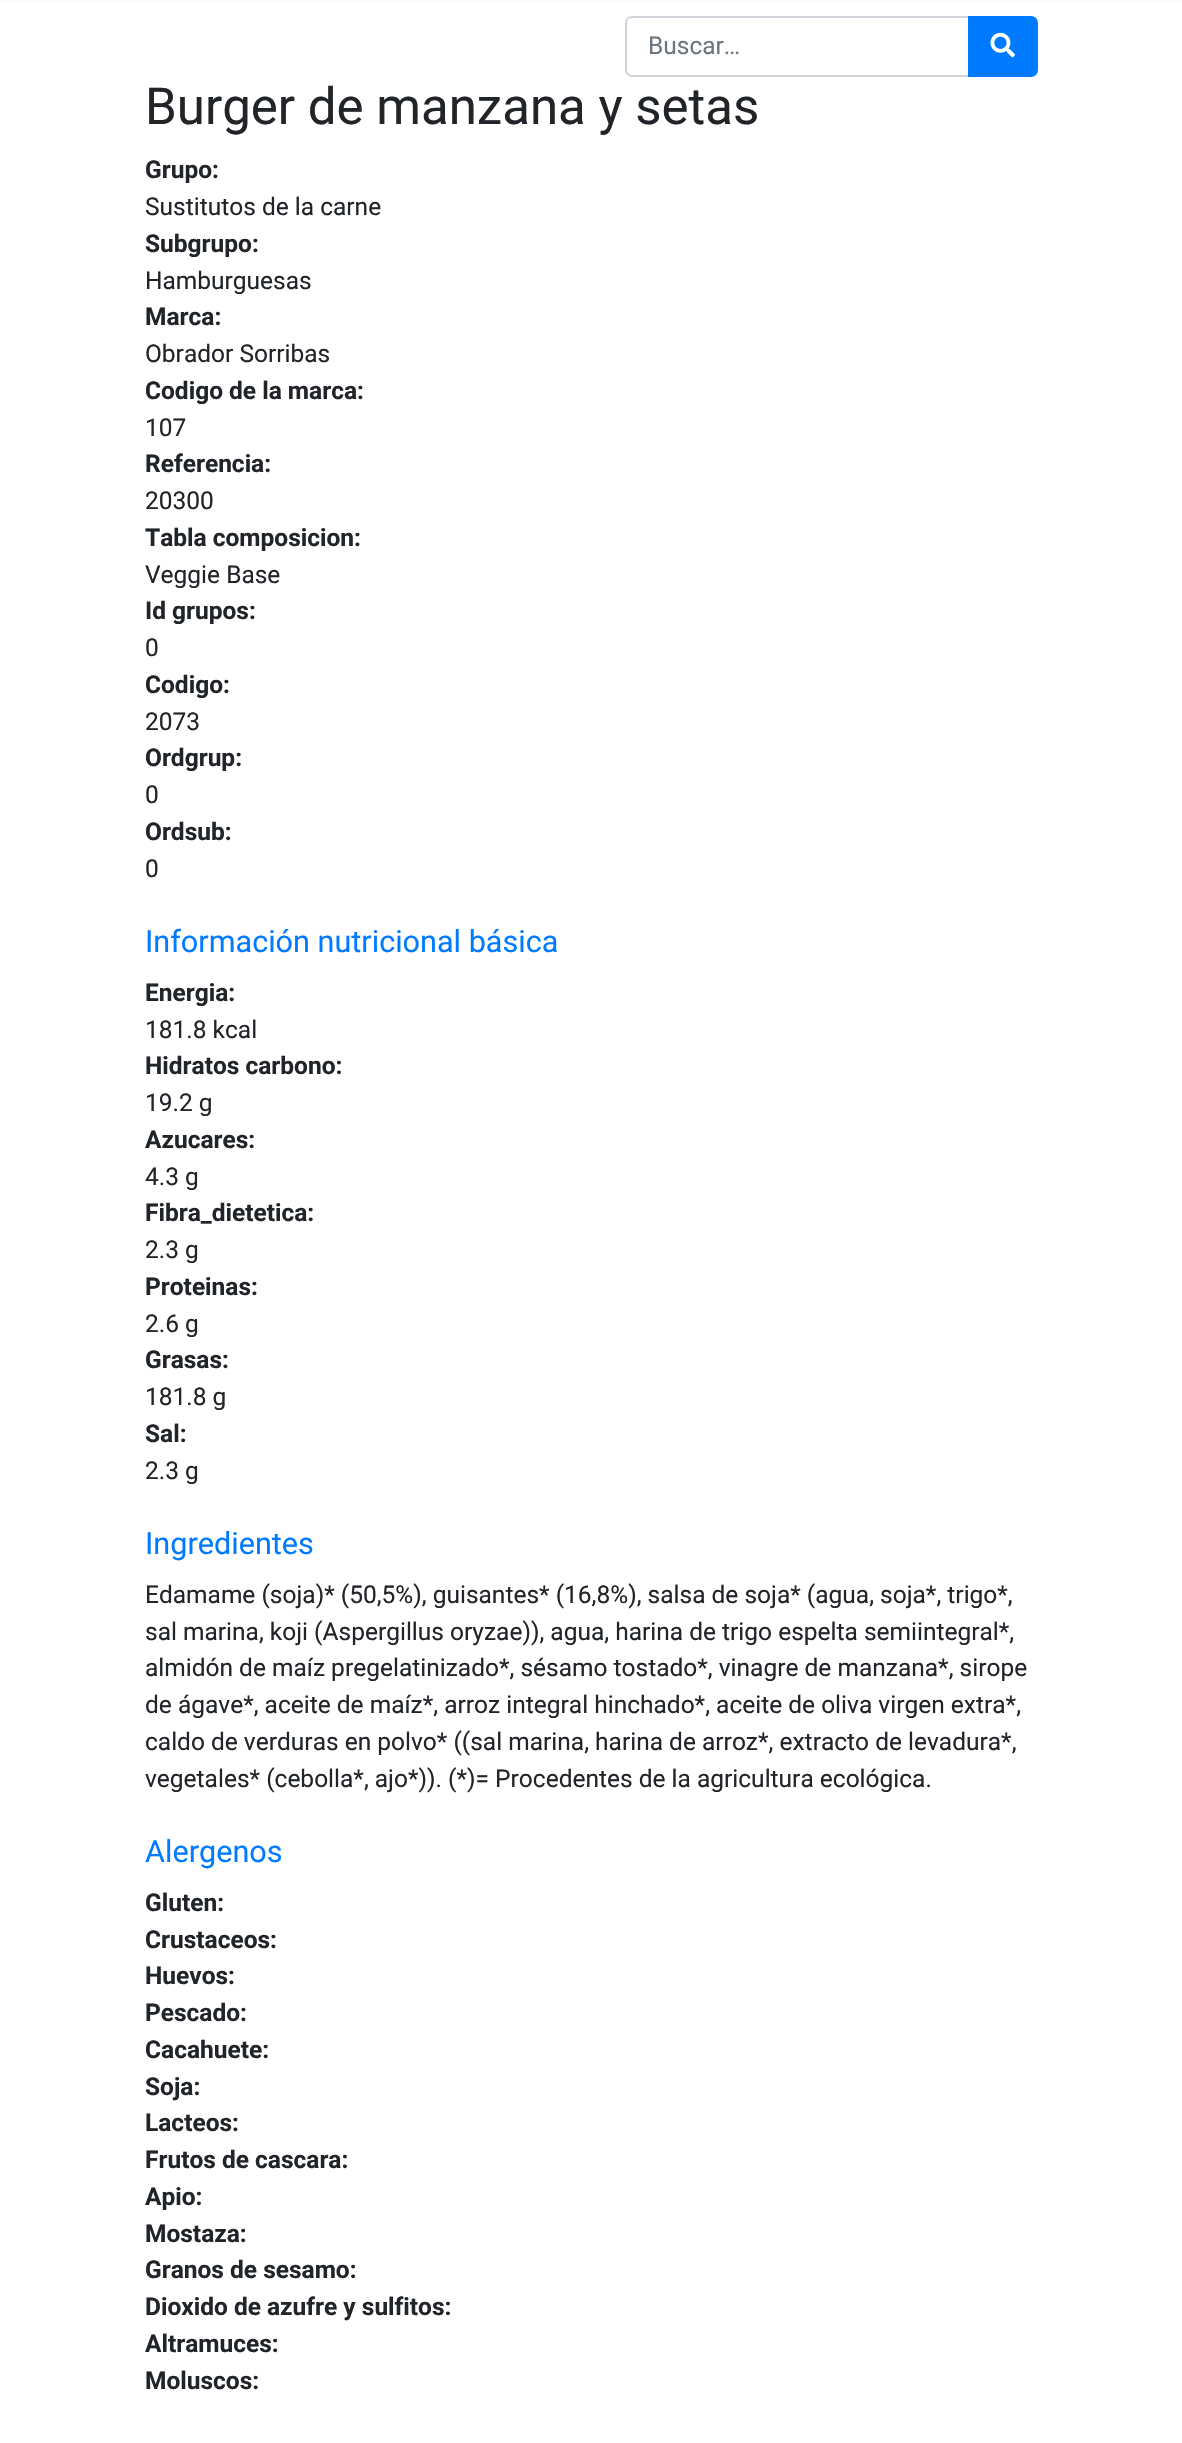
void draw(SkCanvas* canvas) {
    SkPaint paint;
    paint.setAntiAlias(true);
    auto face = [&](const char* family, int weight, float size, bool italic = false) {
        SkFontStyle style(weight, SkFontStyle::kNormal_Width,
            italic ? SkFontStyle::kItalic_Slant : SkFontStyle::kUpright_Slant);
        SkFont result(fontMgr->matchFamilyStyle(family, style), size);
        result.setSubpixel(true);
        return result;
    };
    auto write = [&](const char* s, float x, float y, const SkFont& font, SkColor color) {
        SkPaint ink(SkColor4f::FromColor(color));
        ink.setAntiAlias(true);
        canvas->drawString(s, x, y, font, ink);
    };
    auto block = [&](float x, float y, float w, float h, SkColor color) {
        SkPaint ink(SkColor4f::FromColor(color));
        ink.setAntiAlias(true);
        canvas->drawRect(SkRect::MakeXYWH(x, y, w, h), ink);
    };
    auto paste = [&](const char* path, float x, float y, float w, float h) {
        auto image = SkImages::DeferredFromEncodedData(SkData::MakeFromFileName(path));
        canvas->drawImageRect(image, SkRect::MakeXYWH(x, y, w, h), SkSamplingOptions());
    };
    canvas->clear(SK_ColorWHITE);
    block(0, 0, 1182, 2, SkColorSetRGB(248, 249, 250));
    paint.setStyle(SkPaint::kStroke_Style);
    paint.setStrokeWidth(2);
    paint.setColor(SkColorSetRGB(206, 212, 218));
    canvas->drawPath(SkPathBuilder().moveTo(632, 17).lineTo(969, 17).lineTo(969, 76).lineTo(632, 76).cubicTo(628.5f, 76, 626, 73.5f, 626, 70).lineTo(626, 23).cubicTo(626, 19.5f, 628.5f, 17, 632, 17).close().detach(), paint);
    auto kFont1 = face("Roboto", 400, 24.5f);
    write("Buscar…", 648, 54, kFont1, SkColorSetRGB(108, 117, 125));
    paint.setStyle(SkPaint::kFill_Style);
    paint.setColor(SkColorSetRGB(0, 123, 255));
    canvas->drawPath(SkPathBuilder().moveTo(969, 17).lineTo(1031, 17).cubicTo(1034.5f, 17, 1037, 19.5f, 1037, 23).lineTo(1037, 70).cubicTo(1037, 73.5f, 1034.5f, 76, 1031, 76).lineTo(969, 76).close().detach(), paint);
    paint.setStyle(SkPaint::kStroke_Style);
    canvas->drawPath(SkPathBuilder().moveTo(969, 17).lineTo(1031, 17).cubicTo(1034.5f, 17, 1037, 19.5f, 1037, 23).lineTo(1037, 70).cubicTo(1037, 73.5f, 1034.5f, 76, 1031, 76).lineTo(969, 76).close().detach(), paint);
    paste("pic1.png", 990, 32, 25, 26);
    auto kFont2 = face("Roboto", 400, 51);
    write("Burger de manzana y setas", 145, 124, kFont2, SkColorSetRGB(33, 37, 41));
    auto kFont3 = face("Roboto", 700, 24.5f);
    write("Grupo:", 145, 178, kFont3, SkColorSetRGB(33, 37, 41));
    write("Sustitutos de la carne", 145, 215, kFont1, SkColorSetRGB(33, 37, 41));
    write("Subgrupo:", 145, 252, kFont3, SkColorSetRGB(33, 37, 41));
    write("Hamburguesas", 145, 289, kFont1, SkColorSetRGB(33, 37, 41));
    write("Marca:", 145, 325, kFont3, SkColorSetRGB(33, 37, 41));
    write("Obrador Sorribas", 145, 362, kFont1, SkColorSetRGB(33, 37, 41));
    write("Codigo de la marca:", 145, 399, kFont3, SkColorSetRGB(33, 37, 41));
    write("107", 145, 436, kFont1, SkColorSetRGB(33, 37, 41));
    write("Referencia:", 145, 472, kFont3, SkColorSetRGB(33, 37, 41));
    write("20300", 145, 509, kFont1, SkColorSetRGB(33, 37, 41));
    write("Tabla composicion:", 145, 546, kFont3, SkColorSetRGB(33, 37, 41));
    write("Veggie Base", 145, 583, kFont1, SkColorSetRGB(33, 37, 41));
    write("Id grupos:", 145, 619, kFont3, SkColorSetRGB(33, 37, 41));
    write("0", 145, 656, kFont1, SkColorSetRGB(33, 37, 41));
    write("Codigo:", 145, 693, kFont3, SkColorSetRGB(33, 37, 41));
    write("2073", 145, 730, kFont1, SkColorSetRGB(33, 37, 41));
    write("Ordgrup:", 145, 766, kFont3, SkColorSetRGB(33, 37, 41));
    write("0", 145, 803, kFont1, SkColorSetRGB(33, 37, 41));
    write("Ordsub:", 145, 840, kFont3, SkColorSetRGB(33, 37, 41));
    write("0", 145, 877, kFont1, SkColorSetRGB(33, 37, 41));
    auto kFont4 = face("Roboto", 400, 30.6f);
    write("Información nutricional básica", 145, 952, kFont4, SkColorSetRGB(0, 123, 255));
    write("Energia:", 145, 1001, kFont3, SkColorSetRGB(33, 37, 41));
    write("181.8 kcal", 145, 1038, kFont1, SkColorSetRGB(33, 37, 41));
    write("Hidratos carbono:", 145, 1074, kFont3, SkColorSetRGB(33, 37, 41));
    write("19.2 g", 145, 1111, kFont1, SkColorSetRGB(33, 37, 41));
    write("Azucares:", 145, 1148, kFont3, SkColorSetRGB(33, 37, 41));
    write("4.3 g", 145, 1185, kFont1, SkColorSetRGB(33, 37, 41));
    write("Fibra_dietetica:", 145, 1221, kFont3, SkColorSetRGB(33, 37, 41));
    write("2.3 g", 145, 1258, kFont1, SkColorSetRGB(33, 37, 41));
    write("Proteinas:", 145, 1295, kFont3, SkColorSetRGB(33, 37, 41));
    write("2.6 g", 145, 1332, kFont1, SkColorSetRGB(33, 37, 41));
    write("Grasas:", 145, 1368, kFont3, SkColorSetRGB(33, 37, 41));
    write("181.8 g", 145, 1405, kFont1, SkColorSetRGB(33, 37, 41));
    write("Sal:", 145, 1442, kFont3, SkColorSetRGB(33, 37, 41));
    write("2.3 g", 145, 1479, kFont1, SkColorSetRGB(33, 37, 41));
    write("Ingredientes", 145, 1554, kFont4, SkColorSetRGB(0, 123, 255));
    write("Edamame (soja)* (50,5%), guisantes* (16,8%), salsa de soja* (agua, soja*, trigo*,", 145, 1603, kFont1, SkColorSetRGB(33, 37, 41));
    write("sal marina, koji (Aspergillus oryzae)), agua, harina de trigo espelta semiintegral*,", 145, 1640, kFont1, SkColorSetRGB(33, 37, 41));
    write("almidón de maíz pregelatinizado*, sésamo tostado*, vinagre de manzana*, sirope", 145, 1676, kFont1, SkColorSetRGB(33, 37, 41));
    write("de ágave*, aceite de maíz*, arroz integral hinchado*, aceite de oliva virgen extra*,", 145, 1713, kFont1, SkColorSetRGB(33, 37, 41));
    write("caldo de verduras en polvo* ((sal marina, harina de arroz*, extracto de levadura*,", 145, 1750, kFont1, SkColorSetRGB(33, 37, 41));
    write("vegetales* (cebolla*, ajo*)). (*)= Procedentes de la agricultura ecológica.", 145, 1787, kFont1, SkColorSetRGB(33, 37, 41));
    write("Alergenos", 145, 1862, kFont4, SkColorSetRGB(0, 123, 255));
    write("Gluten:", 145, 1911, kFont3, SkColorSetRGB(33, 37, 41));
    write("Crustaceos:", 145, 1948, kFont3, SkColorSetRGB(33, 37, 41));
    write("Huevos:", 145, 1984, kFont3, SkColorSetRGB(33, 37, 41));
    write("Pescado:", 145, 2021, kFont3, SkColorSetRGB(33, 37, 41));
    write("Cacahuete:", 145, 2058, kFont3, SkColorSetRGB(33, 37, 41));
    write("Soja:", 145, 2095, kFont3, SkColorSetRGB(33, 37, 41));
    write("Lacteos:", 145, 2131, kFont3, SkColorSetRGB(33, 37, 41));
    write("Frutos de cascara:", 145, 2168, kFont3, SkColorSetRGB(33, 37, 41));
    write("Apio:", 145, 2205, kFont3, SkColorSetRGB(33, 37, 41));
    write("Mostaza:", 145, 2242, kFont3, SkColorSetRGB(33, 37, 41));
    write("Granos de sesamo:", 145, 2278, kFont3, SkColorSetRGB(33, 37, 41));
    write("Dioxido de azufre y sulfitos:", 145, 2315, kFont3, SkColorSetRGB(33, 37, 41));
    write("Altramuces:", 145, 2352, kFont3, SkColorSetRGB(33, 37, 41));
    write("Moluscos:", 145, 2389, kFont3, SkColorSetRGB(33, 37, 41));
}
